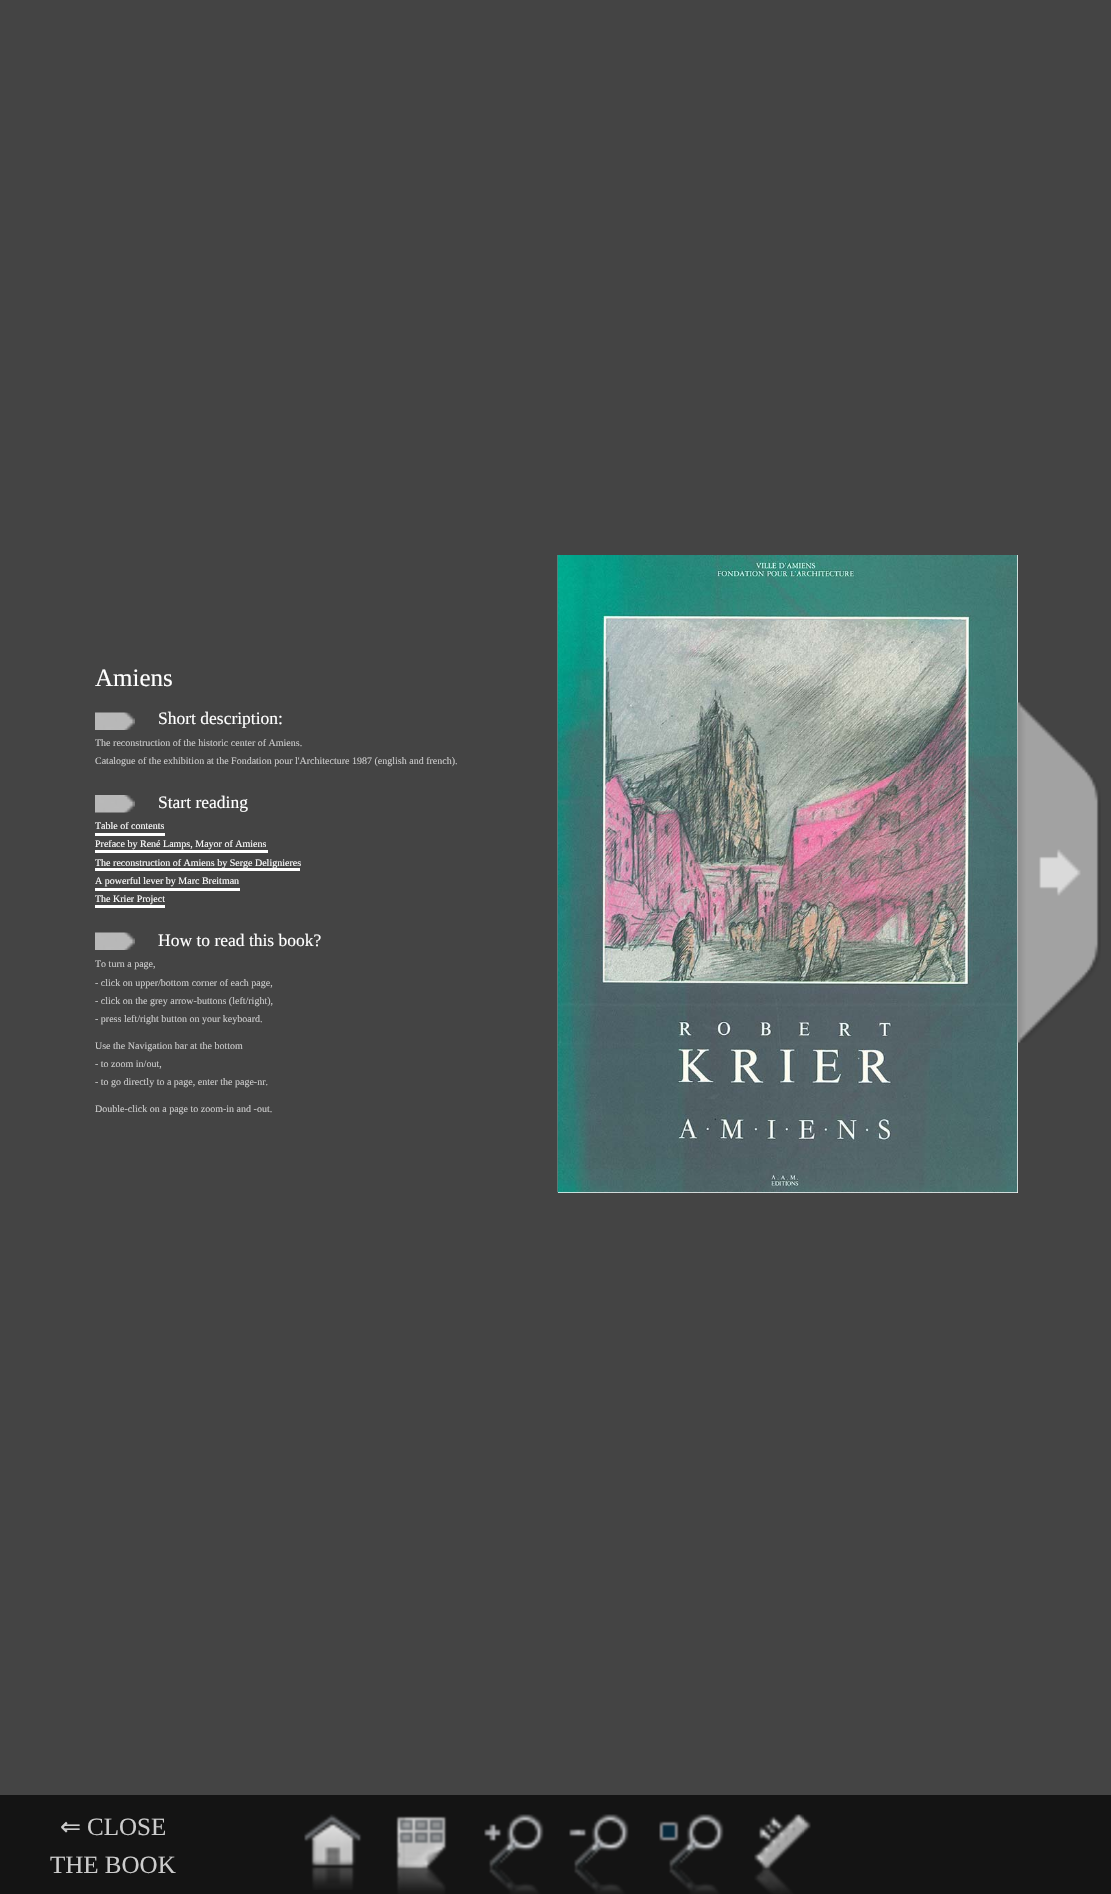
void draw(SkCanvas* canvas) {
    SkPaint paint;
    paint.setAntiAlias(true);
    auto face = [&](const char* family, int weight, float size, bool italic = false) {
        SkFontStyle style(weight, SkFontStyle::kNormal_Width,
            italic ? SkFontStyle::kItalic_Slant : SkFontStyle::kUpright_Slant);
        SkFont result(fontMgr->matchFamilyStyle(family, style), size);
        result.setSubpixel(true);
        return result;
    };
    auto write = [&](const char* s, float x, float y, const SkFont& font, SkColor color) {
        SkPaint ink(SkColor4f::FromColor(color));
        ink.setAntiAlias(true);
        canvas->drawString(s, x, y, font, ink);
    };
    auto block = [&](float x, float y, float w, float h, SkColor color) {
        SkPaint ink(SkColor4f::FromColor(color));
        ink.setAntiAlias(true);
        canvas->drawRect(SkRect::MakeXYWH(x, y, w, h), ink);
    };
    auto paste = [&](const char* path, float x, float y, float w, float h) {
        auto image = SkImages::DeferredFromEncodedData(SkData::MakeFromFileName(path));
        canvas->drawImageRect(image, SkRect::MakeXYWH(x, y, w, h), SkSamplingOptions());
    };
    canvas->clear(SkColorSetRGB(68, 68, 68));
    auto kFont1 = face("Liberation Serif", 400, 25);
    write("Amiens", 95, 686, kFont1, SK_ColorWHITE);
    paste("pic1.png", 95, 712, 40, 18);
    auto kFont2 = face("Liberation Serif", 400, 17.5f);
    write("Short description:", 158, 724, kFont2, SK_ColorWHITE);
    auto kFont3 = face("Liberation Serif", 400, 10);
    write("The reconstruction of the historic center of Amiens.", 95, 746, kFont3, SkColorSetRGB(204, 204, 204));
    write("Catalogue of the exhibition at the Fondation pour l'Architecture 1987 (english and french).", 95, 764, kFont3, SkColorSetRGB(204, 204, 204));
    paste("pic2.png", 95, 795, 40, 18);
    write("Start reading", 158, 808, kFont2, SK_ColorWHITE);
    write("Table of contents", 95, 829, kFont3, SK_ColorWHITE);
    block(95, 833, 70, 3, SK_ColorWHITE);
    write("Preface by René Lamps, Mayor of Amiens", 95, 847, kFont3, SK_ColorWHITE);
    block(95, 850, 173, 3, SK_ColorWHITE);
    block(95, 868, 205, 3, SK_ColorWHITE);
    write("The reconstruction of Amiens by Serge Delignieres", 95, 866, kFont3, SK_ColorWHITE);
    write("A powerful lever by Marc Breitman", 95, 884, kFont3, SK_ColorWHITE);
    block(95, 888, 145, 3, SK_ColorWHITE);
    write("The Krier Project", 95, 902, kFont3, SK_ColorWHITE);
    block(95, 905, 70, 3, SK_ColorWHITE);
    paste("pic1.png", 95, 932, 40, 18);
    write("How to read this book?", 158, 946, kFont2, SK_ColorWHITE);
    write("To turn a page,", 95, 967, kFont3, SkColorSetRGB(204, 204, 204));
    write("- click on upper/bottom corner of each page,", 95, 986, kFont3, SkColorSetRGB(204, 204, 204));
    write("- click on the grey arrow-buttons (left/right),", 95, 1004, kFont3, SkColorSetRGB(204, 204, 204));
    write("- press left/right button on your keyboard.", 95, 1022, kFont3, SkColorSetRGB(204, 204, 204));
    write("Use the Navigation bar at the bottom", 95, 1049, kFont3, SkColorSetRGB(204, 204, 204));
    write("- to zoom in/out,", 95, 1067, kFont3, SkColorSetRGB(204, 204, 204));
    write("- to go directly to a page, enter the page-nr.", 95, 1085, kFont3, SkColorSetRGB(204, 204, 204));
    write("Double-click on a page to zoom-in and -out.", 95, 1112, kFont3, SkColorSetRGB(204, 204, 204));
    paste("pic3.png", 557, 555, 1, 638);
    block(558, 555, 460, 638, SK_ColorWHITE);
    paste("pic4.png", 557, 555, 461, 638);
    paste("pic5.png", 1017, 702, 84, 341);
    block(0, 1795, 1111, 99, SkColorSetRGB(20, 20, 20));
    auto kFont4 = face("DejaVu Sans", 400, 25);
    write("⇐", 60, 1835, kFont4, SkColorSetRGB(204, 204, 204));
    write("CLOSE", 87, 1835, kFont1, SkColorSetRGB(204, 204, 204));
    write("THE BOOK", 50, 1873, kFont1, SkColorSetRGB(204, 204, 204));
    paste("pic6.png", 304, 1814, 58, 76);
    paste("pic7.png", 396, 1816, 51, 78);
    paste("pic8.png", 484, 1814, 60, 80);
    paste("pic9.png", 569, 1814, 60, 80);
    paste("pic10.png", 659, 1814, 65, 80);
    paste("pic11.png", 754, 1814, 57, 80);
}
